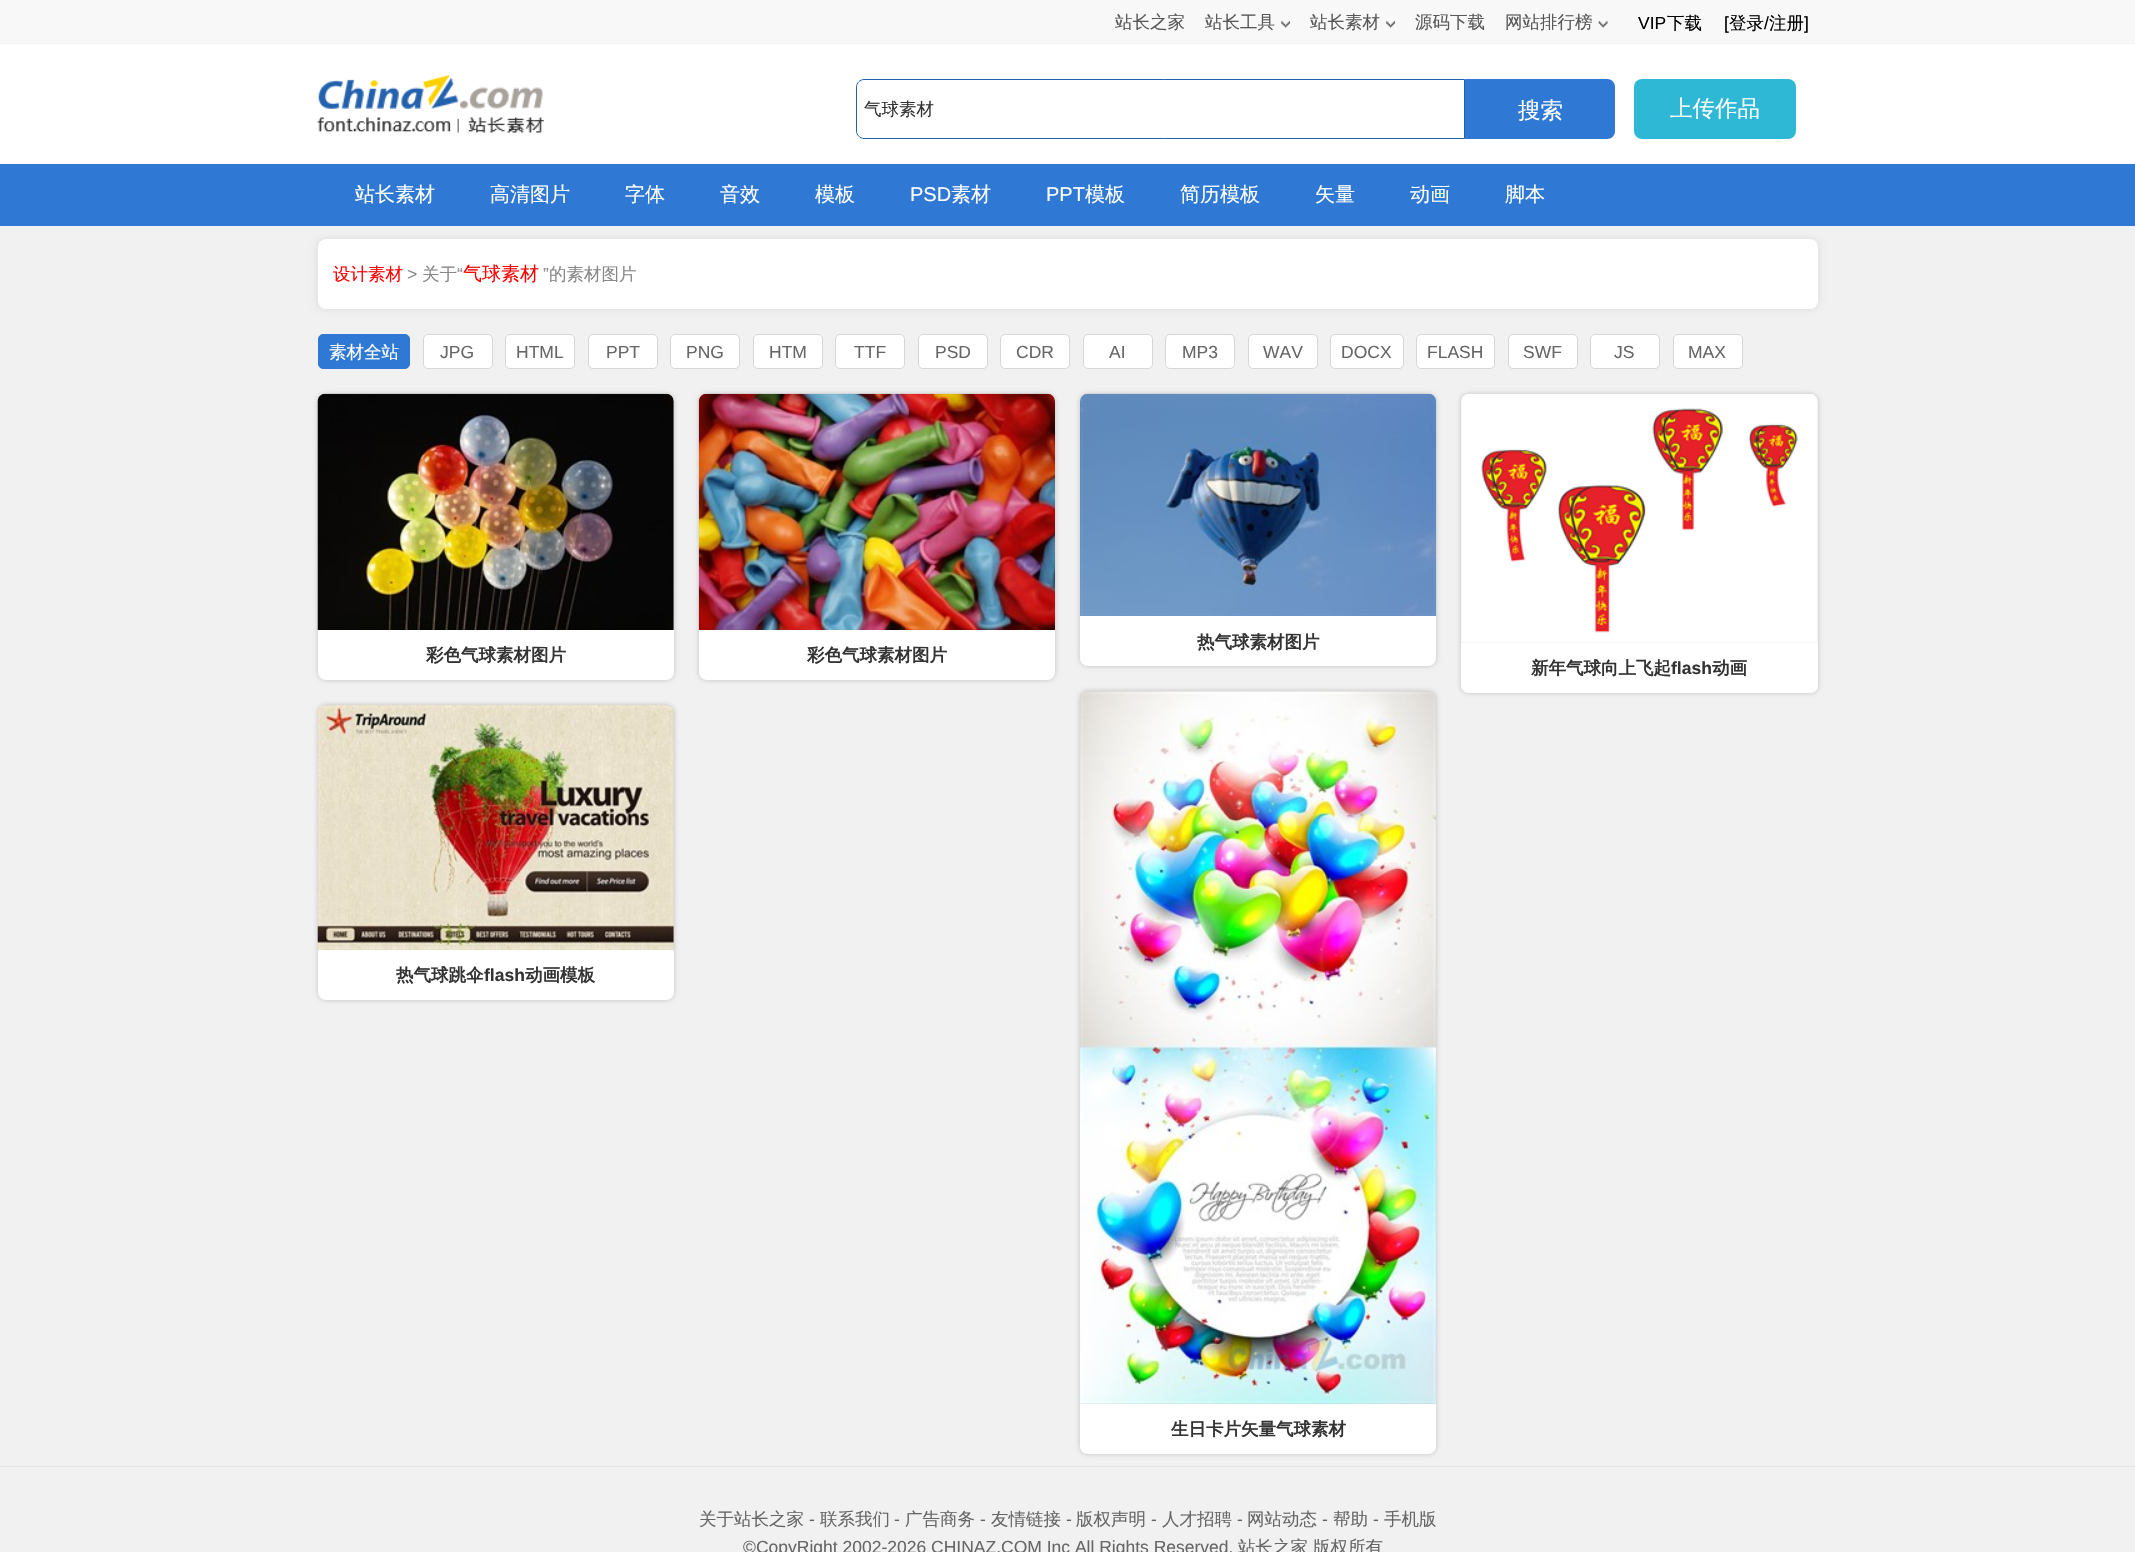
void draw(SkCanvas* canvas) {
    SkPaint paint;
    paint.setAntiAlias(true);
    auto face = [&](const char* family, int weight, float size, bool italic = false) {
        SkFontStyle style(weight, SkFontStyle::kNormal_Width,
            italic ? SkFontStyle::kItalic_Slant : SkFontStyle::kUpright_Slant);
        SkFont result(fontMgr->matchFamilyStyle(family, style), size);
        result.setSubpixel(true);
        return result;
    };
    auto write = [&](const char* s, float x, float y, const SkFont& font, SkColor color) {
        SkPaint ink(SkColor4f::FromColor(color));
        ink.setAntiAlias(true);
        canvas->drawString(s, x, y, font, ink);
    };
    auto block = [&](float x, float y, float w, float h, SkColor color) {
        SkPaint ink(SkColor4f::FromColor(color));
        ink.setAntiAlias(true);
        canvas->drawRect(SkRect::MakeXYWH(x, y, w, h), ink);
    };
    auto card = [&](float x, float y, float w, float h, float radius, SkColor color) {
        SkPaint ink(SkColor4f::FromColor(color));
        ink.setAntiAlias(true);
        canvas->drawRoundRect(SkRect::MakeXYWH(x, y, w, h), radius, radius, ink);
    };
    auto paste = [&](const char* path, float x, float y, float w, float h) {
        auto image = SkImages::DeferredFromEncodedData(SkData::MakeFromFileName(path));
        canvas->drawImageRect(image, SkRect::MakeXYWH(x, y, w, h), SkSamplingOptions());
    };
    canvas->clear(SK_ColorWHITE);
    block(0, 0, 2135, 43, SkColorSetRGB(248, 248, 248));
    block(0, 43, 2135, 1, SkColorSetRGB(242, 242, 242));
    auto kFont1 = face("WenQuanYi Zen Hei", 500, 17.5f);
    write("站长之家", 1115, 28, kFont1, SkColorSetRGB(87, 87, 87));
    write("站长工具", 1205, 28, kFont1, SkColorSetRGB(87, 87, 87));
    paste("pic1.png", 1281, 21, 9, 7);
    write("站长素材", 1310, 28, kFont1, SkColorSetRGB(87, 87, 87));
    paste("pic1.png", 1386, 21, 9, 7);
    write("源码下载", 1415, 28, kFont1, SkColorSetRGB(87, 87, 87));
    write("网站排行榜", 1505, 28, kFont1, SkColorSetRGB(87, 87, 87));
    paste("pic2.png", 1598, 21, 10, 7);
    auto kFont2 = face("Liberation Sans", 400, 17.5f);
    write("VIP", 1638, 29, kFont2, SK_ColorBLACK);
    write("下载", 1667, 29, kFont1, SK_ColorBLACK);
    write("[", 1724, 29, kFont2, SK_ColorBLACK);
    write("登录", 1729, 29, kFont1, SK_ColorBLACK);
    write("/", 1764, 29, kFont2, SK_ColorBLACK);
    write("注册", 1769, 29, kFont1, SK_ColorBLACK);
    write("]", 1804, 29, kFont2, SK_ColorBLACK);
    paste("pic3.png", 317, 75, 227, 58);
    paint.setStyle(SkPaint::kStroke_Style);
    paint.setStrokeWidth(1);
    paint.setColor(SkColorSetRGB(35, 97, 173));
    canvas->drawPath(SkPathBuilder().moveTo(864, 79.5f).lineTo(1464.5f, 79.5f).lineTo(1464.5f, 138.5f).lineTo(864, 138.5f).cubicTo(860, 138.5f, 856.5f, 135, 856.5f, 131).lineTo(856.5f, 87).cubicTo(856.5f, 83, 860, 79.5f, 864, 79.5f).close().detach(), paint);
    write("气球素材", 864, 115, kFont1, SkColorSetRGB(51, 51, 51));
    paint.setStyle(SkPaint::kFill_Style);
    paint.setColor(SkColorSetRGB(47, 121, 213));
    canvas->drawPath(SkPathBuilder().moveTo(1465, 79).lineTo(1607, 79).cubicTo(1611.5f, 79, 1615, 82.5f, 1615, 87).lineTo(1615, 131).cubicTo(1615, 135.5f, 1611.5f, 139, 1607, 139).lineTo(1465, 139).close().detach(), paint);
    auto kFont3 = face("WenQuanYi Zen Hei", 500, 22.5f);
    write("搜索", 1518, 118, kFont3, SK_ColorWHITE);
    card(1634, 79, 162, 60, 8, SkColorSetRGB(47, 184, 213));
    write("上传作品", 1670, 116, kFont3, SK_ColorWHITE);
    block(0, 164, 2135, 62, SkColorSetRGB(47, 121, 213));
    auto kFont4 = face("WenQuanYi Zen Hei", 500, 20);
    write("站长素材", 355, 201, kFont4, SK_ColorWHITE);
    write("高清图片", 490, 201, kFont4, SK_ColorWHITE);
    write("字体", 625, 201, kFont4, SK_ColorWHITE);
    write("音效", 720, 201, kFont4, SK_ColorWHITE);
    write("模板", 815, 201, kFont4, SK_ColorWHITE);
    auto kFont5 = face("Liberation Sans", 400, 20);
    write("PSD", 910, 201, kFont5, SK_ColorWHITE);
    write("素材", 951, 201, kFont4, SK_ColorWHITE);
    write("PPT", 1046, 201, kFont5, SK_ColorWHITE);
    write("模板", 1085, 201, kFont4, SK_ColorWHITE);
    write("简历模板", 1180, 201, kFont4, SK_ColorWHITE);
    write("矢量", 1315, 201, kFont4, SK_ColorWHITE);
    write("动画", 1410, 201, kFont4, SK_ColorWHITE);
    write("脚本", 1505, 201, kFont4, SK_ColorWHITE);
    block(0, 226, 2135, 1326, SkColorSetRGB(241, 241, 241));
    paint.setColor(SkColorSetRGB(223, 224, 225));
    paint.setMaskFilter(SkMaskFilter::MakeBlur(kNormal_SkBlurStyle, 3));
    canvas->drawRoundRect(SkRect::MakeXYWH(316, 238, 1503, 72), 9, 9, paint);
    paint.setMaskFilter(nullptr);
    card(318, 239, 1500, 70, 8, SK_ColorWHITE);
    write("设计素材", 333, 280, kFont1, SkColorSetRGB(255, 0, 0));
    write(">", 407, 280, kFont2, SkColorSetRGB(136, 136, 136));
    write("关于", 422, 280, kFont1, SkColorSetRGB(136, 136, 136));
    write("“", 457, 280, kFont2, SkColorSetRGB(136, 136, 136));
    auto kFont6 = face("WenQuanYi Zen Hei", 500, 19);
    write("气球素材", 463, 280, kFont6, SkColorSetRGB(255, 0, 0));
    write("”", 543, 280, kFont2, SkColorSetRGB(136, 136, 136));
    write("的素材图片", 549, 280, kFont1, SkColorSetRGB(136, 136, 136));
    paint.setColor(SkColorSetRGB(47, 121, 213));
    canvas->drawRoundRect(SkRect::MakeXYWH(318.5f, 334.5f, 91, 34), 4.5f, 4.5f, paint);
    paint.setStyle(SkPaint::kStroke_Style);
    canvas->drawRoundRect(SkRect::MakeXYWH(318.5f, 334.5f, 91, 34), 4.5f, 4.5f, paint);
    write("素材全站", 329, 358, kFont1, SK_ColorWHITE);
    paint.setStyle(SkPaint::kFill_Style);
    paint.setColor(SK_ColorWHITE);
    canvas->drawRoundRect(SkRect::MakeXYWH(423.5f, 334.5f, 69, 34), 4.5f, 4.5f, paint);
    paint.setStyle(SkPaint::kStroke_Style);
    paint.setColor(SkColorSetRGB(215, 215, 215));
    canvas->drawRoundRect(SkRect::MakeXYWH(423.5f, 334.5f, 69, 34), 4.5f, 4.5f, paint);
    write("JPG", 440, 358, kFont2, SkColorSetRGB(102, 102, 102));
    paint.setStyle(SkPaint::kFill_Style);
    paint.setColor(SK_ColorWHITE);
    canvas->drawRoundRect(SkRect::MakeXYWH(505.5f, 334.5f, 69, 34), 4.5f, 4.5f, paint);
    paint.setStyle(SkPaint::kStroke_Style);
    paint.setColor(SkColorSetRGB(215, 215, 215));
    canvas->drawRoundRect(SkRect::MakeXYWH(505.5f, 334.5f, 69, 34), 4.5f, 4.5f, paint);
    write("HTML", 516, 358, kFont2, SkColorSetRGB(102, 102, 102));
    paint.setStyle(SkPaint::kFill_Style);
    paint.setColor(SK_ColorWHITE);
    canvas->drawRoundRect(SkRect::MakeXYWH(588.5f, 334.5f, 69, 34), 4.5f, 4.5f, paint);
    paint.setStyle(SkPaint::kStroke_Style);
    paint.setColor(SkColorSetRGB(215, 215, 215));
    canvas->drawRoundRect(SkRect::MakeXYWH(588.5f, 334.5f, 69, 34), 4.5f, 4.5f, paint);
    write("PPT", 606, 358, kFont2, SkColorSetRGB(102, 102, 102));
    paint.setStyle(SkPaint::kFill_Style);
    paint.setColor(SK_ColorWHITE);
    canvas->drawRoundRect(SkRect::MakeXYWH(670.5f, 334.5f, 69, 34), 4.5f, 4.5f, paint);
    paint.setStyle(SkPaint::kStroke_Style);
    paint.setColor(SkColorSetRGB(215, 215, 215));
    canvas->drawRoundRect(SkRect::MakeXYWH(670.5f, 334.5f, 69, 34), 4.5f, 4.5f, paint);
    write("PNG", 686, 358, kFont2, SkColorSetRGB(102, 102, 102));
    paint.setStyle(SkPaint::kFill_Style);
    paint.setColor(SK_ColorWHITE);
    canvas->drawRoundRect(SkRect::MakeXYWH(753.5f, 334.5f, 69, 34), 4.5f, 4.5f, paint);
    paint.setStyle(SkPaint::kStroke_Style);
    paint.setColor(SkColorSetRGB(215, 215, 215));
    canvas->drawRoundRect(SkRect::MakeXYWH(753.5f, 334.5f, 69, 34), 4.5f, 4.5f, paint);
    write("HTM", 769, 358, kFont2, SkColorSetRGB(102, 102, 102));
    paint.setStyle(SkPaint::kFill_Style);
    paint.setColor(SK_ColorWHITE);
    canvas->drawRoundRect(SkRect::MakeXYWH(835.5f, 334.5f, 69, 34), 4.5f, 4.5f, paint);
    paint.setStyle(SkPaint::kStroke_Style);
    paint.setColor(SkColorSetRGB(215, 215, 215));
    canvas->drawRoundRect(SkRect::MakeXYWH(835.5f, 334.5f, 69, 34), 4.5f, 4.5f, paint);
    write("TTF", 854, 358, kFont2, SkColorSetRGB(102, 102, 102));
    paint.setStyle(SkPaint::kFill_Style);
    paint.setColor(SK_ColorWHITE);
    canvas->drawRoundRect(SkRect::MakeXYWH(918.5f, 334.5f, 69, 34), 4.5f, 4.5f, paint);
    paint.setStyle(SkPaint::kStroke_Style);
    paint.setColor(SkColorSetRGB(215, 215, 215));
    canvas->drawRoundRect(SkRect::MakeXYWH(918.5f, 334.5f, 69, 34), 4.5f, 4.5f, paint);
    write("PSD", 935, 358, kFont2, SkColorSetRGB(102, 102, 102));
    paint.setStyle(SkPaint::kFill_Style);
    paint.setColor(SK_ColorWHITE);
    canvas->drawRoundRect(SkRect::MakeXYWH(1000.5f, 334.5f, 69, 34), 4.5f, 4.5f, paint);
    paint.setStyle(SkPaint::kStroke_Style);
    paint.setColor(SkColorSetRGB(215, 215, 215));
    canvas->drawRoundRect(SkRect::MakeXYWH(1000.5f, 334.5f, 69, 34), 4.5f, 4.5f, paint);
    write("CDR", 1016, 358, kFont2, SkColorSetRGB(102, 102, 102));
    paint.setStyle(SkPaint::kFill_Style);
    paint.setColor(SK_ColorWHITE);
    canvas->drawRoundRect(SkRect::MakeXYWH(1083.5f, 334.5f, 69, 34), 4.5f, 4.5f, paint);
    paint.setStyle(SkPaint::kStroke_Style);
    paint.setColor(SkColorSetRGB(215, 215, 215));
    canvas->drawRoundRect(SkRect::MakeXYWH(1083.5f, 334.5f, 69, 34), 4.5f, 4.5f, paint);
    write("AI", 1109, 358, kFont2, SkColorSetRGB(102, 102, 102));
    paint.setStyle(SkPaint::kFill_Style);
    paint.setColor(SK_ColorWHITE);
    canvas->drawRoundRect(SkRect::MakeXYWH(1165.5f, 334.5f, 69, 34), 4.5f, 4.5f, paint);
    paint.setStyle(SkPaint::kStroke_Style);
    paint.setColor(SkColorSetRGB(215, 215, 215));
    canvas->drawRoundRect(SkRect::MakeXYWH(1165.5f, 334.5f, 69, 34), 4.5f, 4.5f, paint);
    write("MP3", 1182, 358, kFont2, SkColorSetRGB(102, 102, 102));
    paint.setStyle(SkPaint::kFill_Style);
    paint.setColor(SK_ColorWHITE);
    canvas->drawRoundRect(SkRect::MakeXYWH(1248.5f, 334.5f, 69, 34), 4.5f, 4.5f, paint);
    paint.setStyle(SkPaint::kStroke_Style);
    paint.setColor(SkColorSetRGB(215, 215, 215));
    canvas->drawRoundRect(SkRect::MakeXYWH(1248.5f, 334.5f, 69, 34), 4.5f, 4.5f, paint);
    write("WAV", 1263, 358, kFont2, SkColorSetRGB(102, 102, 102));
    paint.setStyle(SkPaint::kFill_Style);
    paint.setColor(SK_ColorWHITE);
    canvas->drawRoundRect(SkRect::MakeXYWH(1330.5f, 334.5f, 73, 34), 4.5f, 4.5f, paint);
    paint.setStyle(SkPaint::kStroke_Style);
    paint.setColor(SkColorSetRGB(215, 215, 215));
    canvas->drawRoundRect(SkRect::MakeXYWH(1330.5f, 334.5f, 73, 34), 4.5f, 4.5f, paint);
    write("DOCX", 1341, 358, kFont2, SkColorSetRGB(102, 102, 102));
    paint.setStyle(SkPaint::kFill_Style);
    paint.setColor(SK_ColorWHITE);
    canvas->drawRoundRect(SkRect::MakeXYWH(1416.5f, 334.5f, 78, 34), 4.5f, 4.5f, paint);
    paint.setStyle(SkPaint::kStroke_Style);
    paint.setColor(SkColorSetRGB(215, 215, 215));
    canvas->drawRoundRect(SkRect::MakeXYWH(1416.5f, 334.5f, 78, 34), 4.5f, 4.5f, paint);
    write("FLASH", 1427, 358, kFont2, SkColorSetRGB(102, 102, 102));
    paint.setStyle(SkPaint::kFill_Style);
    paint.setColor(SK_ColorWHITE);
    canvas->drawRoundRect(SkRect::MakeXYWH(1508.5f, 334.5f, 69, 34), 4.5f, 4.5f, paint);
    paint.setStyle(SkPaint::kStroke_Style);
    paint.setColor(SkColorSetRGB(215, 215, 215));
    canvas->drawRoundRect(SkRect::MakeXYWH(1508.5f, 334.5f, 69, 34), 4.5f, 4.5f, paint);
    write("SWF", 1523, 358, kFont2, SkColorSetRGB(102, 102, 102));
    paint.setStyle(SkPaint::kFill_Style);
    paint.setColor(SK_ColorWHITE);
    canvas->drawRoundRect(SkRect::MakeXYWH(1590.5f, 334.5f, 69, 34), 4.5f, 4.5f, paint);
    paint.setStyle(SkPaint::kStroke_Style);
    paint.setColor(SkColorSetRGB(215, 215, 215));
    canvas->drawRoundRect(SkRect::MakeXYWH(1590.5f, 334.5f, 69, 34), 4.5f, 4.5f, paint);
    write("JS", 1614, 358, kFont2, SkColorSetRGB(102, 102, 102));
    paint.setStyle(SkPaint::kFill_Style);
    paint.setColor(SK_ColorWHITE);
    canvas->drawRoundRect(SkRect::MakeXYWH(1673.5f, 334.5f, 69, 34), 4.5f, 4.5f, paint);
    paint.setStyle(SkPaint::kStroke_Style);
    paint.setColor(SkColorSetRGB(215, 215, 215));
    canvas->drawRoundRect(SkRect::MakeXYWH(1673.5f, 334.5f, 69, 34), 4.5f, 4.5f, paint);
    write("MAX", 1688, 358, kFont2, SkColorSetRGB(102, 102, 102));
    paint.setStyle(SkPaint::kFill_Style);
    paint.setColor(SkColorSetARGB(51, 0, 0, 0));
    paint.setMaskFilter(SkMaskFilter::MakeBlur(kNormal_SkBlurStyle, 2.5f));
    canvas->drawRoundRect(SkRect::MakeXYWH(1080, 394, 356, 272), 8, 8, paint);
    paint.setMaskFilter(nullptr);
    paste("pic4.png", 1080, 393, 357, 223);
    paint.setColor(SK_ColorWHITE);
    canvas->drawPath(SkPathBuilder().moveTo(1080, 616).lineTo(1436, 616).lineTo(1436, 658).cubicTo(1436, 662.5f, 1432.5f, 666, 1428, 666).lineTo(1088, 666).cubicTo(1083.5f, 666, 1080, 662.5f, 1080, 658).close().detach(), paint);
    auto kFont7 = face("WenQuanYi Zen Hei", 700, 17.5f);
    write("热气球素材图片", 1197, 648, kFont7, SkColorSetRGB(51, 51, 51));
    paint.setColor(SkColorSetARGB(51, 0, 0, 0));
    paint.setMaskFilter(SkMaskFilter::MakeBlur(kNormal_SkBlurStyle, 2.5f));
    canvas->drawRoundRect(SkRect::MakeXYWH(318, 394, 356, 286), 8, 8, paint);
    paint.setMaskFilter(nullptr);
    paste("pic5.png", 317, 393, 357, 237);
    paint.setColor(SK_ColorWHITE);
    canvas->drawPath(SkPathBuilder().moveTo(318, 630).lineTo(674, 630).lineTo(674, 672).cubicTo(674, 676.5f, 670.5f, 680, 666, 680).lineTo(326, 680).cubicTo(321.5f, 680, 318, 676.5f, 318, 672).close().detach(), paint);
    write("彩色气球素材图片", 426, 661, kFont7, SkColorSetRGB(51, 51, 51));
    paint.setColor(SkColorSetARGB(51, 0, 0, 0));
    paint.setMaskFilter(SkMaskFilter::MakeBlur(kNormal_SkBlurStyle, 2.5f));
    canvas->drawRoundRect(SkRect::MakeXYWH(699, 394, 356, 286), 8, 8, paint);
    paint.setMaskFilter(nullptr);
    paste("pic6.png", 698, 393, 357, 237);
    paint.setColor(SK_ColorWHITE);
    canvas->drawPath(SkPathBuilder().moveTo(699, 630).lineTo(1055, 630).lineTo(1055, 672).cubicTo(1055, 676.5f, 1051.5f, 680, 1047, 680).lineTo(707, 680).cubicTo(702.5f, 680, 699, 676.5f, 699, 672).close().detach(), paint);
    write("彩色气球素材图片", 807, 661, kFont7, SkColorSetRGB(51, 51, 51));
    canvas->save();
    canvas->clipPath(SkPathBuilder(SkPathFillType::kEvenOdd).moveTo(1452, 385).lineTo(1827, 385).lineTo(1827, 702).lineTo(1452, 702).close().moveTo(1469, 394).lineTo(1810, 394).cubicTo(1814.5f, 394, 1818, 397.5f, 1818, 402).lineTo(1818, 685).cubicTo(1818, 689.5f, 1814.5f, 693, 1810, 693).lineTo(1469, 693).cubicTo(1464.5f, 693, 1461, 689.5f, 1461, 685).lineTo(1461, 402).cubicTo(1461, 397.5f, 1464.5f, 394, 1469, 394).close().detach(), true);
    paint.setColor(SkColorSetARGB(51, 0, 0, 0));
    paint.setMaskFilter(SkMaskFilter::MakeBlur(kNormal_SkBlurStyle, 2.5f));
    canvas->drawRoundRect(SkRect::MakeXYWH(1461, 394, 357, 299), 8, 8, paint);
    paint.setMaskFilter(nullptr);
    canvas->restore();
    paste("pic7.png", 1461, 394, 357, 249);
    paint.setColor(SK_ColorWHITE);
    canvas->drawPath(SkPathBuilder().moveTo(1461, 643).lineTo(1818, 643).lineTo(1818, 685).cubicTo(1818, 689.5f, 1814.5f, 693, 1810, 693).lineTo(1469, 693).cubicTo(1464.5f, 693, 1461, 689.5f, 1461, 685).close().detach(), paint);
    write("新年气球向上飞起", 1531, 674, kFont7, SkColorSetRGB(51, 51, 51));
    auto kFont8 = face("Liberation Sans", 700, 17.5f);
    write("flash", 1671, 674, kFont8, SkColorSetRGB(51, 51, 51));
    write("动画", 1712, 674, kFont7, SkColorSetRGB(51, 51, 51));
    paint.setColor(SkColorSetARGB(51, 0, 0, 0));
    paint.setMaskFilter(SkMaskFilter::MakeBlur(kNormal_SkBlurStyle, 2.5f));
    canvas->drawRoundRect(SkRect::MakeXYWH(318, 705, 356, 295), 8, 8, paint);
    paint.setMaskFilter(nullptr);
    paste("pic8.png", 317, 705, 357, 245);
    paint.setColor(SK_ColorWHITE);
    canvas->drawPath(SkPathBuilder().moveTo(318, 950).lineTo(674, 950).lineTo(674, 992).cubicTo(674, 996.5f, 670.5f, 1000, 666, 1000).lineTo(326, 1000).cubicTo(321.5f, 1000, 318, 996.5f, 318, 992).close().detach(), paint);
    write("热气球跳伞", 396, 981, kFont7, SkColorSetRGB(51, 51, 51));
    write("flash", 484, 981, kFont8, SkColorSetRGB(51, 51, 51));
    write("动画模板", 525, 981, kFont7, SkColorSetRGB(51, 51, 51));
    paint.setColor(SkColorSetARGB(51, 0, 0, 0));
    paint.setMaskFilter(SkMaskFilter::MakeBlur(kNormal_SkBlurStyle, 2.5f));
    canvas->drawRoundRect(SkRect::MakeXYWH(1080, 691, 356, 763), 8, 8, paint);
    paint.setMaskFilter(nullptr);
    paste("pic9.png", 1080, 691, 357, 713);
    paint.setColor(SK_ColorWHITE);
    canvas->drawPath(SkPathBuilder().moveTo(1080, 1404).lineTo(1436, 1404).lineTo(1436, 1446).cubicTo(1436, 1450.5f, 1432.5f, 1454, 1428, 1454).lineTo(1088, 1454).cubicTo(1083.5f, 1454, 1080, 1450.5f, 1080, 1446).close().detach(), paint);
    write("生日卡片矢量气球素材", 1171, 1435, kFont7, SkColorSetRGB(51, 51, 51));
    block(0, 1466, 2135, 1, SkColorSetRGB(229, 229, 229));
    write("关于站长之家", 699, 1525, kFont1, SkColorSetRGB(102, 102, 102));
    write("-", 809, 1525, kFont2, SkColorSetRGB(102, 102, 102));
    write("联系我们", 820, 1525, kFont1, SkColorSetRGB(102, 102, 102));
    write("-", 894, 1525, kFont2, SkColorSetRGB(102, 102, 102));
    write("广告商务", 905, 1525, kFont1, SkColorSetRGB(102, 102, 102));
    write("-", 980, 1525, kFont2, SkColorSetRGB(102, 102, 102));
    write("友情链接", 991, 1525, kFont1, SkColorSetRGB(102, 102, 102));
    write("-", 1066, 1525, kFont2, SkColorSetRGB(102, 102, 102));
    write("版权声明", 1076, 1525, kFont1, SkColorSetRGB(102, 102, 102));
    write("-", 1151, 1525, kFont2, SkColorSetRGB(102, 102, 102));
    write("人才招聘", 1162, 1525, kFont1, SkColorSetRGB(102, 102, 102));
    write("-", 1237, 1525, kFont2, SkColorSetRGB(102, 102, 102));
    write("网站动态", 1247, 1525, kFont1, SkColorSetRGB(102, 102, 102));
    write("-", 1322, 1525, kFont2, SkColorSetRGB(102, 102, 102));
    write("帮助", 1333, 1525, kFont1, SkColorSetRGB(102, 102, 102));
    write("-", 1373, 1525, kFont2, SkColorSetRGB(102, 102, 102));
    write("手机版", 1384, 1525, kFont1, SkColorSetRGB(102, 102, 102));
    write("©CopyRight 2002-2026 CHINAZ.COM Inc All Rights Reserved.", 743, 1553, kFont2, SkColorSetRGB(102, 102, 102));
    write("站长之家", 1238, 1553, kFont1, SkColorSetRGB(102, 102, 102));
    write("版权所有", 1313, 1553, kFont1, SkColorSetRGB(102, 102, 102));
}
